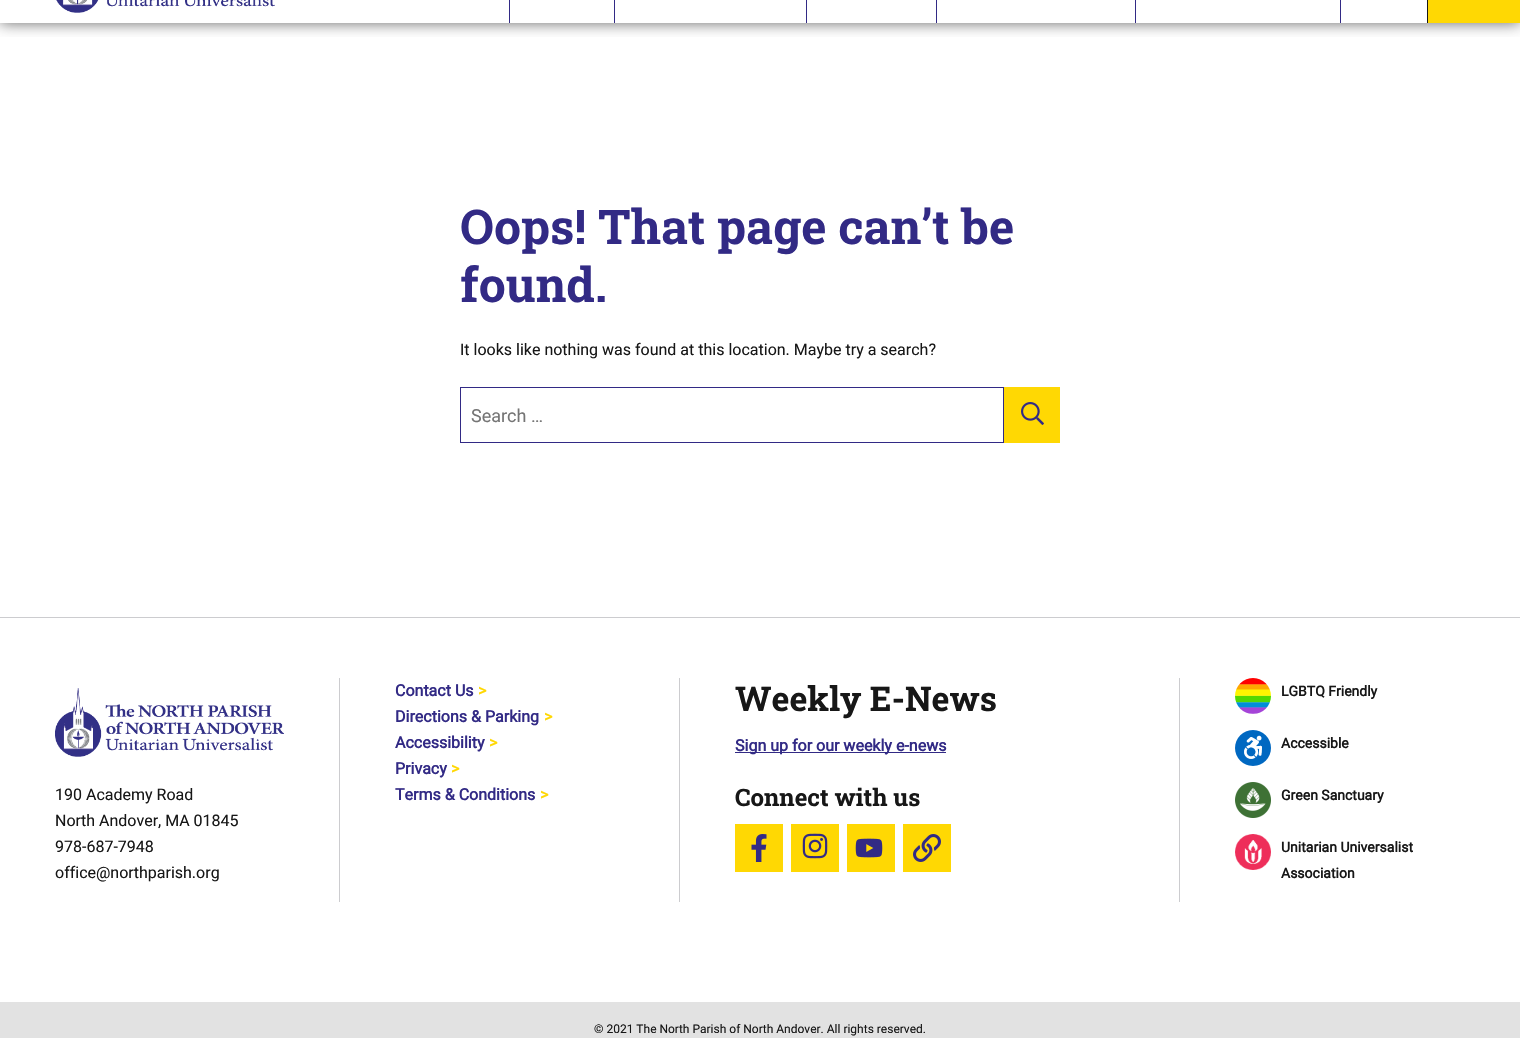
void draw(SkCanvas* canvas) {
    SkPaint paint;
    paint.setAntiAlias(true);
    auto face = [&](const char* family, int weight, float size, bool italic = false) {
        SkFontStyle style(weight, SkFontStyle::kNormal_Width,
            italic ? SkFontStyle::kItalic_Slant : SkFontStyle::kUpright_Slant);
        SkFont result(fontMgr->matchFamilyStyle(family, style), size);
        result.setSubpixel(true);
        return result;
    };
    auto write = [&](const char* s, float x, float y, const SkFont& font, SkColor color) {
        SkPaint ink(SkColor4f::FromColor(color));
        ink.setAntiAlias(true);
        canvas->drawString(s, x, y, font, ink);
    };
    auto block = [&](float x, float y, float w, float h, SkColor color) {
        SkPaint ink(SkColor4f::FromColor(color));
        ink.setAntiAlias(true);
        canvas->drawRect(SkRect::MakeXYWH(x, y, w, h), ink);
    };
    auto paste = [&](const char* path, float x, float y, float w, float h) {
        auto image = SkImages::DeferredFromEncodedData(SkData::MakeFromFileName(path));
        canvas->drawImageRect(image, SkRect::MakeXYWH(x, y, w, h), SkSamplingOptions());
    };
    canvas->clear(SK_ColorWHITE);
    canvas->save();
    canvas->clipRect(SkRect::MakeXYWH(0, 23, 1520, 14));
    paint.setColor(SkColorSetARGB(153, 0, 0, 0));
    paint.setMaskFilter(SkMaskFilter::MakeBlur(kNormal_SkBlurStyle, 7.5f));
    canvas->drawRect(SkRect::MakeXYWH(0, -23, 1520, 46), paint);
    paint.setMaskFilter(nullptr);
    canvas->restore();
    paste("pic1.png", 56, 0, 219, 13);
    block(509, 0, 1, 23, SkColorSetRGB(50, 42, 133));
    block(614, 0, 1, 23, SkColorSetRGB(50, 42, 133));
    block(806, 0, 1, 23, SkColorSetRGB(50, 42, 133));
    block(936, 0, 1, 23, SkColorSetRGB(50, 42, 133));
    block(1135, 0, 1, 23, SkColorSetRGB(50, 42, 133));
    block(1340, 0, 1, 23, SkColorSetRGB(50, 42, 133));
    block(1428, 0, 92, 23, SkColorSetRGB(255, 216, 3));
    block(1427, 0, 1, 23, SkColorSetRGB(23, 23, 23));
    auto kFont1 = face("Roboto Slab", 700, 48);
    write("Oops! That page can’t be", 460, 244, kFont1, SkColorSetRGB(50, 42, 133));
    write("found.", 460, 302, kFont1, SkColorSetRGB(50, 42, 133));
    auto kFont2 = face("Roboto", 400, 16);
    write("It looks like nothing was found at this location. Maybe try a search?", 460, 355, kFont2, SkColorSetRGB(23, 23, 23));
    paint.setStyle(SkPaint::kStroke_Style);
    paint.setStrokeWidth(1);
    paint.setColor(SkColorSetRGB(50, 42, 133));
    canvas->drawRect(SkRect::MakeXYWH(460.5f, 387.5f, 543, 55), paint);
    auto kFont3 = face("Roboto", 400, 18);
    write("Search …", 471, 422, kFont3, SkColorSetRGB(117, 117, 117));
    block(1004, 387, 56, 56, SkColorSetRGB(255, 216, 3));
    paste("pic2.png", 1021, 402, 23, 23);
    block(0, 617, 1520, 1, SkColorSetRGB(204, 204, 207));
    block(339, 678, 1, 224, SkColorSetRGB(204, 204, 207));
    paste("pic3.png", 55, 688, 229, 69);
    write("190 Academy Road", 55, 800, kFont2, SkColorSetRGB(23, 23, 23));
    write("North Andover, MA 01845", 55, 826, kFont2, SkColorSetRGB(23, 23, 23));
    write("978-687-7948", 55, 852, kFont2, SkColorSetRGB(23, 23, 23));
    write("office@northparish.org", 55, 878, kFont2, SkColorSetRGB(23, 23, 23));
    block(679, 678, 1, 224, SkColorSetRGB(204, 204, 207));
    auto kFont4 = face("Roboto", 700, 16);
    write("Contact Us", 395, 696, kFont4, SkColorSetRGB(50, 42, 133));
    write(">", 478, 696, kFont4, SkColorSetRGB(255, 216, 3));
    write("Directions & Parking", 395, 722, kFont4, SkColorSetRGB(50, 42, 133));
    write(">", 544, 722, kFont4, SkColorSetRGB(255, 216, 3));
    write("Accessibility", 395, 748, kFont4, SkColorSetRGB(50, 42, 133));
    write(">", 489, 748, kFont4, SkColorSetRGB(255, 216, 3));
    write("Privacy", 395, 774, kFont4, SkColorSetRGB(50, 42, 133));
    write(">", 451, 774, kFont4, SkColorSetRGB(255, 216, 3));
    write("Terms & Conditions", 395, 800, kFont4, SkColorSetRGB(50, 42, 133));
    write(">", 540, 800, kFont4, SkColorSetRGB(255, 216, 3));
    block(1179, 678, 1, 224, SkColorSetRGB(204, 204, 207));
    auto kFont5 = face("Roboto Slab", 700, 34);
    write("Weekly E-News", 735, 711, kFont5, SkColorSetRGB(23, 23, 23));
    block(735, 752, 211, 1, SkColorSetRGB(50, 42, 133));
    write("Sign up for our weekly e-news", 735, 751, kFont4, SkColorSetRGB(50, 42, 133));
    auto kFont6 = face("Roboto Slab", 700, 24);
    write("Connect with us", 735, 806, kFont6, SkColorSetRGB(23, 23, 23));
    block(735, 824, 48, 48, SkColorSetRGB(255, 216, 3));
    paste("pic4.png", 751, 834, 16, 28);
    block(791, 824, 48, 48, SkColorSetRGB(255, 216, 3));
    paste("pic5.png", 802, 833, 26, 26);
    block(847, 824, 48, 48, SkColorSetRGB(255, 216, 3));
    paste("pic6.png", 855, 838, 28, 20);
    block(903, 824, 48, 48, SkColorSetRGB(255, 216, 3));
    paste("pic7.png", 913, 834, 28, 28);
    paste("pic8.png", 1235, 678, 36, 36);
    auto kFont7 = face("Roboto", 700, 14);
    write("LGBTQ Friendly", 1281, 696, kFont7, SkColorSetRGB(23, 23, 23));
    paste("pic9.png", 1235, 730, 36, 36);
    write("Accessible", 1281, 748, kFont7, SkColorSetRGB(23, 23, 23));
    paste("pic10.png", 1235, 782, 36, 36);
    write("Green Sanctuary", 1281, 800, kFont7, SkColorSetRGB(23, 23, 23));
    paste("pic11.png", 1235, 834, 36, 36);
    write("Unitarian Universalist", 1281, 852, kFont7, SkColorSetRGB(23, 23, 23));
    write("Association", 1281, 878, kFont7, SkColorSetRGB(23, 23, 23));
    block(0, 1002, 1520, 36, SkColorSetRGB(226, 226, 226));
    auto kFont8 = face("Roboto", 400, 12);
    write("© 2021 The North Parish of North Andover. All rights reserved.", 594, 1033, kFont8, SkColorSetRGB(23, 23, 23));
}
